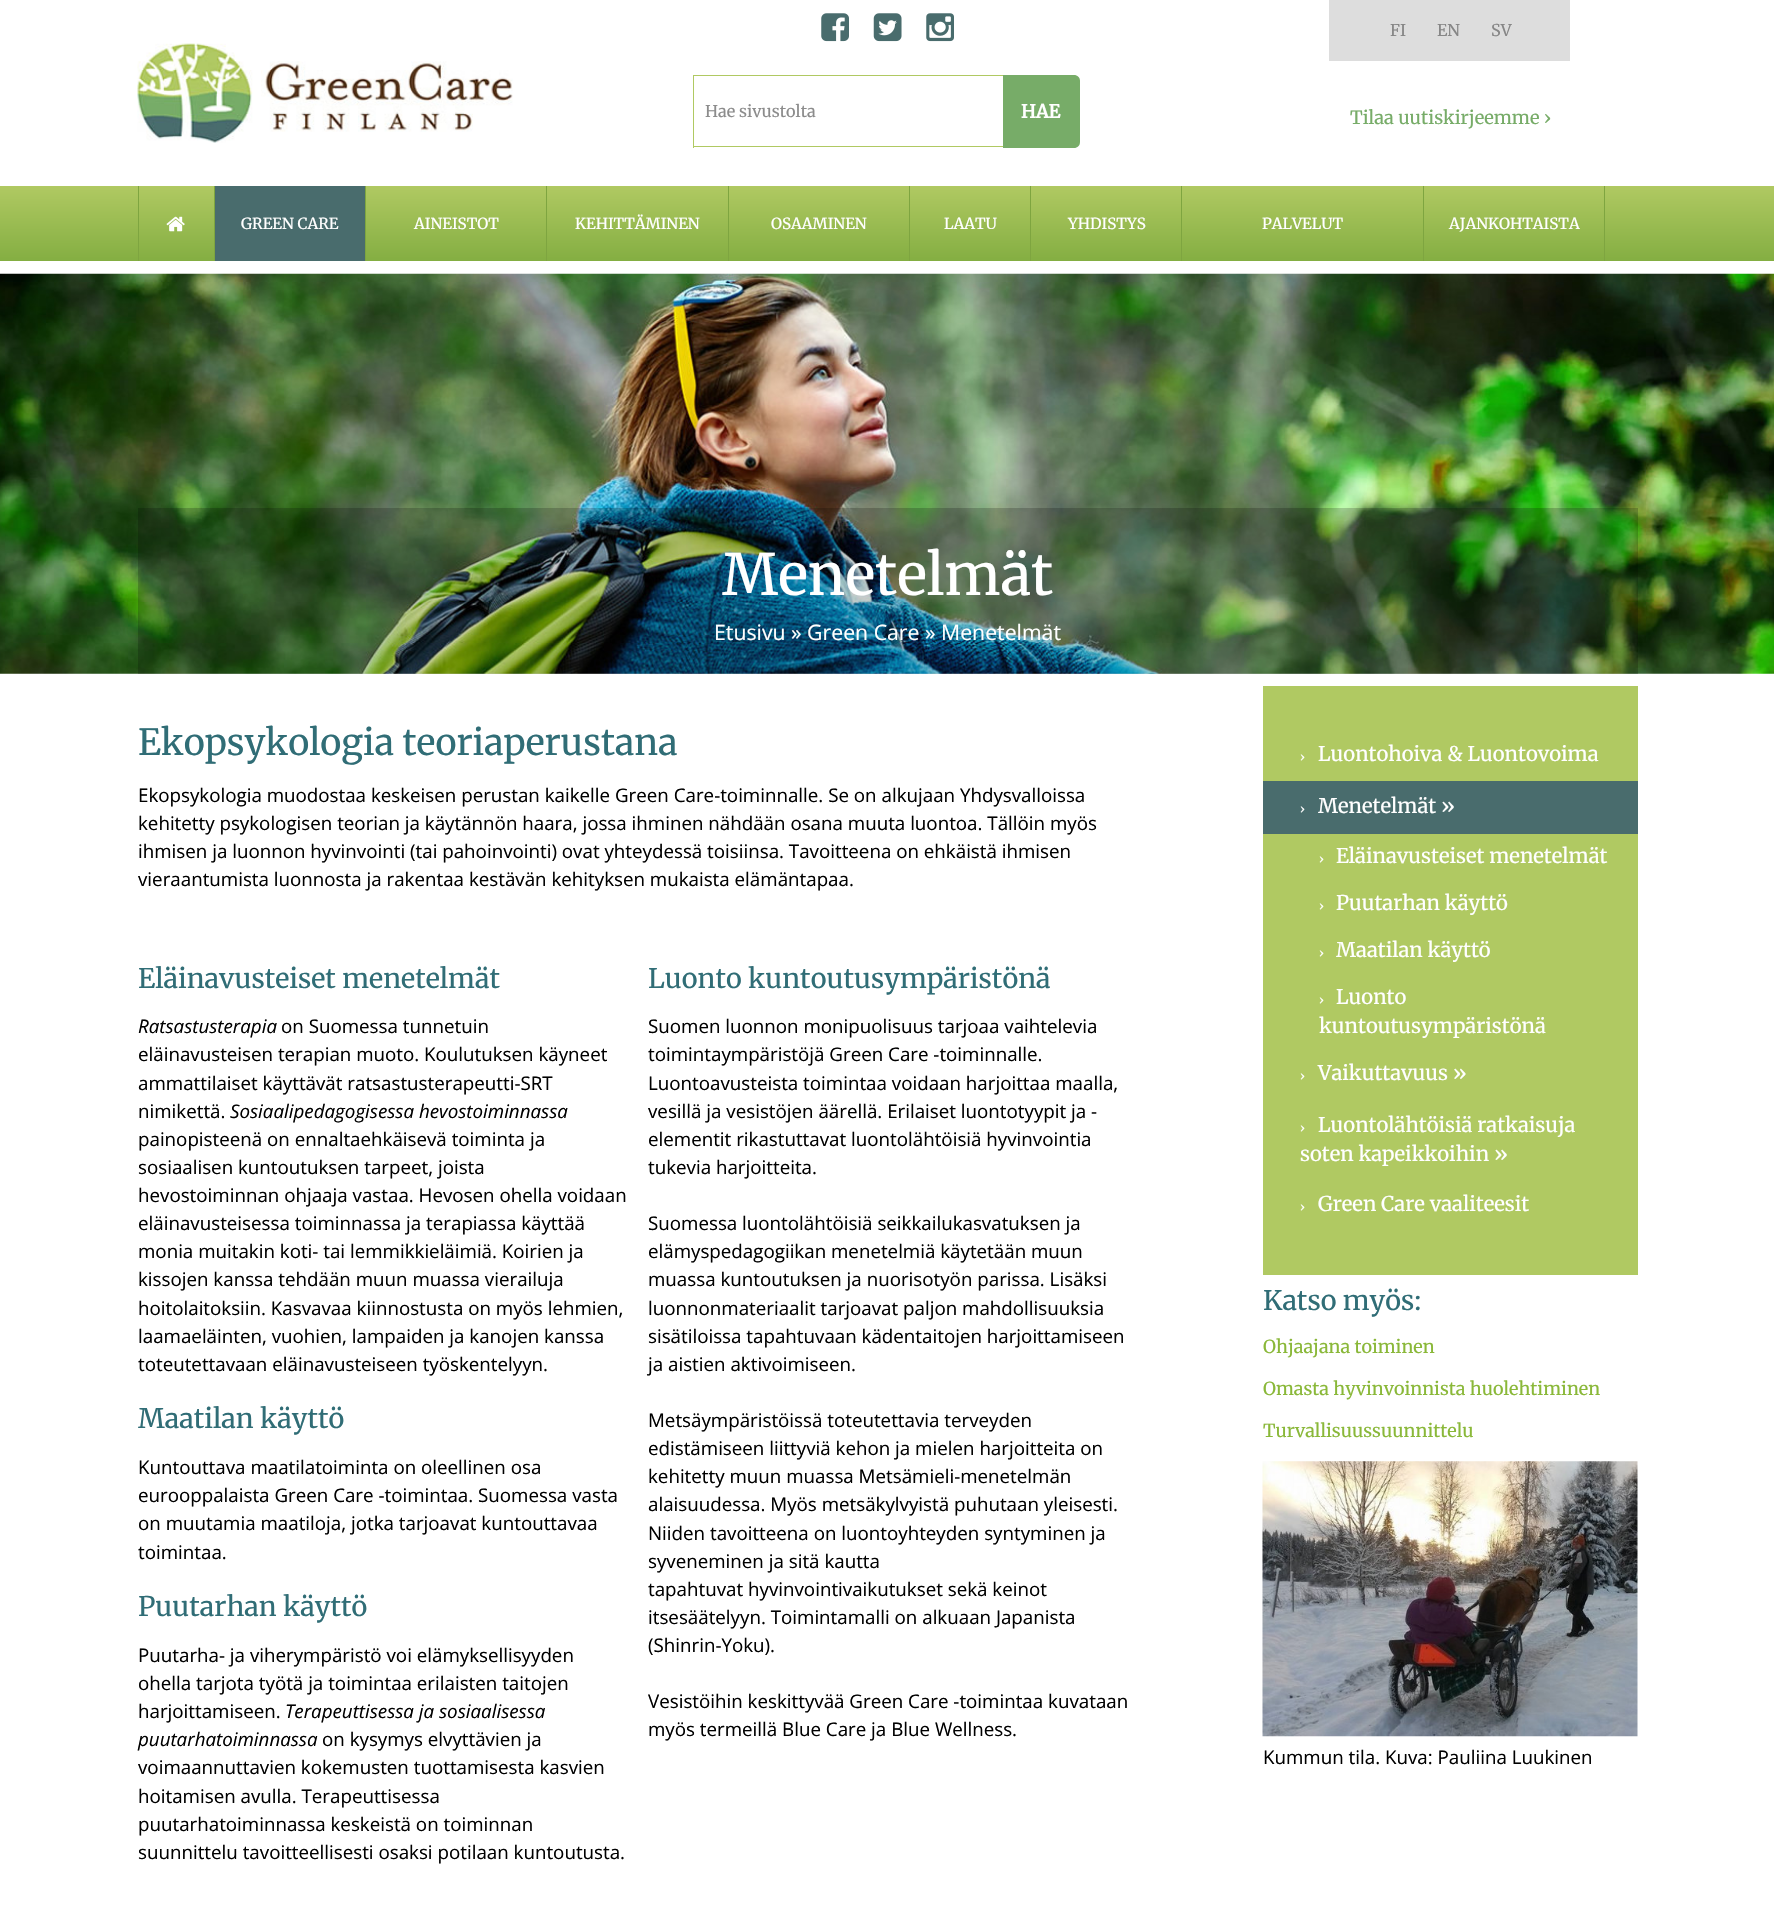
void draw(SkCanvas* canvas) {
    SkPaint paint;
    paint.setAntiAlias(true);
    auto face = [&](const char* family, int weight, float size, bool italic = false) {
        SkFontStyle style(weight, SkFontStyle::kNormal_Width,
            italic ? SkFontStyle::kItalic_Slant : SkFontStyle::kUpright_Slant);
        SkFont result(fontMgr->matchFamilyStyle(family, style), size);
        result.setSubpixel(true);
        return result;
    };
    auto write = [&](const char* s, float x, float y, const SkFont& font, SkColor color) {
        SkPaint ink(SkColor4f::FromColor(color));
        ink.setAntiAlias(true);
        canvas->drawString(s, x, y, font, ink);
    };
    auto block = [&](float x, float y, float w, float h, SkColor color) {
        SkPaint ink(SkColor4f::FromColor(color));
        ink.setAntiAlias(true);
        canvas->drawRect(SkRect::MakeXYWH(x, y, w, h), ink);
    };
    auto paste = [&](const char* path, float x, float y, float w, float h) {
        auto image = SkImages::DeferredFromEncodedData(SkData::MakeFromFileName(path));
        canvas->drawImageRect(image, SkRect::MakeXYWH(x, y, w, h), SkSamplingOptions());
    };
    canvas->clear(SK_ColorWHITE);
    block(693, 75, 310, 1, SkColorSetRGB(176, 201, 98));
    block(693, 146, 310, 1, SkColorSetRGB(176, 201, 98));
    block(693, 75, 1, 73, SkColorSetRGB(176, 201, 98));
    auto kFont1 = face("Merriweather", 300, 16.25f);
    write("Hae sivustolta", 705, 117, kFont1, SkColorSetRGB(140, 140, 140));
    paint.setColor(SkColorSetRGB(119, 172, 104));
    canvas->drawPath(SkPathBuilder().moveTo(1003, 75).lineTo(1074, 75).cubicTo(1077.5f, 75, 1080, 77.5f, 1080, 81).lineTo(1080, 142).cubicTo(1080, 145.5f, 1077.5f, 148, 1074, 148).lineTo(1003, 148).close().detach(), paint);
    auto kFont2 = face("Merriweather", 700, 18.25f);
    write("HAE", 1021, 118, kFont2, SK_ColorWHITE);
    paste("pic1.png", 137, 43, 376, 100);
    paste("pic2.png", 821, 13, 28, 29);
    paste("pic3.png", 873, 13, 29, 29);
    paste("pic4.png", 926, 13, 28, 29);
    block(1329, 0, 241, 61, SkColorSetRGB(221, 221, 221));
    write("FI", 1390, 36, kFont1, SkColorSetRGB(134, 134, 134));
    write("EN", 1437, 36, kFont1, SkColorSetRGB(134, 134, 134));
    write("SV", 1491, 36, kFont1, SkColorSetRGB(134, 134, 134));
    auto kFont3 = face("Merriweather", 300, 18.25f);
    write("Tilaa uutiskirjeemme ›", 1350, 124, kFont3, SkColorSetRGB(119, 172, 104));
    {
        const SkColor colors[] = {SkColorSetRGB(176, 201, 98), SkColorSetRGB(132, 174, 66)};
        const float stops[] = {0, 1};
        const SkPoint ends[] = {{888, 186}, {888, 261}};
        paint.setShader(SkGradientShader::MakeLinear(ends, colors, stops, 2, SkTileMode::kClamp));
        paint.setAlpha(255);
    }
    canvas->drawRect(SkRect::MakeXYWH(0, 186, 1774, 75), paint);
    block(214, 186, 1, 75, SkColorSetRGB(126, 165, 64));
    block(138, 186, 1, 75, SkColorSetRGB(126, 165, 64));
    paste("pic5.png", 166, 216, 19, 16);
    block(365, 186, 1, 75, SkColorSetRGB(126, 165, 64));
    block(215, 186, 150, 75, SkColorSetRGB(73, 108, 109));
    auto kFont4 = face("Merriweather", 300, 15.25f);
    write("GREEN CARE", 241, 229, kFont4, SK_ColorWHITE);
    block(546, 186, 1, 75, SkColorSetRGB(126, 165, 64));
    write("AINEISTOT", 414, 229, kFont4, SK_ColorWHITE);
    block(728, 186, 1, 75, SkColorSetRGB(126, 165, 64));
    write("KEHITTÄMINEN", 575, 229, kFont4, SK_ColorWHITE);
    block(909, 186, 1, 75, SkColorSetRGB(126, 165, 64));
    write("OSAAMINEN", 771, 229, kFont4, SK_ColorWHITE);
    block(1030, 186, 1, 75, SkColorSetRGB(126, 165, 64));
    write("LAATU", 944, 229, kFont4, SK_ColorWHITE);
    block(1181, 186, 1, 75, SkColorSetRGB(126, 165, 64));
    write("YHDISTYS", 1068, 229, kFont4, SK_ColorWHITE);
    block(1423, 186, 1, 75, SkColorSetRGB(126, 165, 64));
    write("PALVELUT", 1262, 229, kFont4, SK_ColorWHITE);
    block(1604, 186, 1, 75, SkColorSetRGB(126, 165, 64));
    write("AJANKOHTAISTA", 1449, 229, kFont4, SK_ColorWHITE);
    paste("pic6.png", 0, 273, 1774, 401);
    block(138, 508, 1500, 166, SkColorSetARGB(51, 0, 0, 0));
    auto kFont5 = face("Merriweather", 300, 56.75f);
    write("Menetelmät", 722, 595, kFont5, SK_ColorWHITE);
    auto kFont6 = face("Open Sans", 400, 21.25f);
    write("Etusivu » Green Care » Menetelmät", 714, 640, kFont6, SK_ColorWHITE);
    auto kFont7 = face("Merriweather", 300, 36);
    write("Ekopsykologia teoriaperustana", 138, 755, kFont7, SkColorSetRGB(48, 109, 118));
    auto kFont8 = face("Open Sans", 400, 18.75f);
    write("Ekopsykologia muodostaa keskeisen perustan kaikelle Green Care-toiminnalle. Se on alkujaan Yhdysvalloissa", 138, 802, kFont8, SK_ColorBLACK);
    write("kehitetty psykologisen teorian ja käytännön haara, jossa ihminen nähdään osana muuta luontoa. Tällöin myös", 138, 830, kFont8, SK_ColorBLACK);
    write("ihmisen ja luonnon hyvinvointi (tai pahoinvointi) ovat yhteydessä toisiinsa. Tavoitteena on ehkäistä ihmisen", 138, 858, kFont8, SK_ColorBLACK);
    write("vieraantumista luonnosta ja rakentaa kestävän kehityksen mukaista elämäntapaa.", 138, 886, kFont8, SK_ColorBLACK);
    auto kFont9 = face("Merriweather", 300, 27);
    write("Eläinavusteiset menetelmät", 138, 988, kFont9, SkColorSetRGB(48, 109, 118));
    auto kFont10 = face("Open Sans", 400, 18.75f, true);
    write("Ratsastusterapia", 138, 1033, kFont10, SK_ColorBLACK);
    write("on Suomessa tunnetuin", 281, 1033, kFont8, SK_ColorBLACK);
    write("eläinavusteisen terapian muoto. Koulutuksen käyneet", 138, 1061, kFont8, SK_ColorBLACK);
    write("ammattilaiset käyttävät ratsastusterapeutti-SRT", 138, 1090, kFont8, SK_ColorBLACK);
    write("nimikettä.", 138, 1118, kFont8, SK_ColorBLACK);
    write("Sosiaalipedagogisessa hevostoiminnassa", 230, 1118, kFont10, SK_ColorBLACK);
    write("painopisteenä on ennaltaehkäisevä toiminta ja", 138, 1146, kFont8, SK_ColorBLACK);
    write("sosiaalisen kuntoutuksen tarpeet, joista", 138, 1174, kFont8, SK_ColorBLACK);
    write("hevostoiminnan ohjaaja vastaa. Hevosen ohella voidaan", 138, 1202, kFont8, SK_ColorBLACK);
    write("eläinavusteisessa toiminnassa ja terapiassa käyttää", 138, 1230, kFont8, SK_ColorBLACK);
    write("monia muitakin koti- tai lemmikkieläimiä. Koirien ja", 138, 1258, kFont8, SK_ColorBLACK);
    write("kissojen kanssa tehdään muun muassa vierailuja", 138, 1286, kFont8, SK_ColorBLACK);
    write("hoitolaitoksiin. Kasvavaa kiinnostusta on myös lehmien,", 138, 1315, kFont8, SK_ColorBLACK);
    write("laamaeläinten, vuohien, lampaiden ja kanojen kanssa", 138, 1343, kFont8, SK_ColorBLACK);
    write("toteutettavaan eläinavusteiseen työskentelyyn.", 138, 1371, kFont8, SK_ColorBLACK);
    write("Maatilan käyttö", 138, 1428, kFont9, SkColorSetRGB(48, 109, 118));
    write("Kuntouttava maatilatoiminta on oleellinen osa", 138, 1474, kFont8, SK_ColorBLACK);
    write("eurooppalaista Green Care -toimintaa. Suomessa vasta", 138, 1502, kFont8, SK_ColorBLACK);
    write("on muutamia maatiloja, jotka tarjoavat kuntouttavaa", 138, 1530, kFont8, SK_ColorBLACK);
    write("toimintaa.", 138, 1559, kFont8, SK_ColorBLACK);
    write("Puutarhan käyttö", 138, 1616, kFont9, SkColorSetRGB(48, 109, 118));
    write("Puutarha- ja viherympäristö voi elämyksellisyyden", 138, 1662, kFont8, SK_ColorBLACK);
    write("ohella tarjota työtä ja toimintaa erilaisten taitojen", 138, 1690, kFont8, SK_ColorBLACK);
    write("harjoittamiseen.", 138, 1718, kFont8, SK_ColorBLACK);
    write("Terapeuttisessa ja sosiaalisessa", 285, 1718, kFont10, SK_ColorBLACK);
    write("puutarhatoiminnassa", 138, 1746, kFont10, SK_ColorBLACK);
    write("on kysymys elvyttävien ja", 322, 1746, kFont8, SK_ColorBLACK);
    write("voimaannuttavien kokemusten tuottamisesta kasvien", 138, 1774, kFont8, SK_ColorBLACK);
    write("hoitamisen avulla. Terapeuttisessa", 138, 1803, kFont8, SK_ColorBLACK);
    write("puutarhatoiminnassa keskeistä on toiminnan", 138, 1831, kFont8, SK_ColorBLACK);
    write("suunnittelu tavoitteellisesti osaksi potilaan kuntoutusta.", 138, 1859, kFont8, SK_ColorBLACK);
    write("Luonto kuntoutusympäristönä", 648, 988, kFont9, SkColorSetRGB(48, 109, 118));
    write("Suomen luonnon monipuolisuus tarjoaa vaihtelevia", 648, 1033, kFont8, SK_ColorBLACK);
    write("toimintaympäristöjä Green Care -toiminnalle.", 648, 1061, kFont8, SK_ColorBLACK);
    write("Luontoavusteista toimintaa voidaan harjoittaa maalla,", 648, 1090, kFont8, SK_ColorBLACK);
    write("vesillä ja vesistöjen äärellä. Erilaiset luontotyypit ja -", 648, 1118, kFont8, SK_ColorBLACK);
    write("elementit rikastuttavat luontolähtöisiä hyvinvointia", 648, 1146, kFont8, SK_ColorBLACK);
    write("tukevia harjoitteita.", 648, 1174, kFont8, SK_ColorBLACK);
    write("Suomessa luontolähtöisiä seikkailukasvatuksen ja", 648, 1230, kFont8, SK_ColorBLACK);
    write("elämyspedagogiikan menetelmiä käytetään muun", 648, 1258, kFont8, SK_ColorBLACK);
    write("muassa kuntoutuksen ja nuorisotyön parissa. Lisäksi", 648, 1286, kFont8, SK_ColorBLACK);
    write("luonnonmateriaalit tarjoavat paljon mahdollisuuksia", 648, 1315, kFont8, SK_ColorBLACK);
    write("sisätiloissa tapahtuvaan kädentaitojen harjoittamiseen", 648, 1343, kFont8, SK_ColorBLACK);
    write("ja aistien aktivoimiseen.", 648, 1371, kFont8, SK_ColorBLACK);
    write("Metsäympäristöissä toteutettavia terveyden", 648, 1427, kFont8, SK_ColorBLACK);
    write("edistämiseen liittyviä kehon ja mielen harjoitteita on", 648, 1455, kFont8, SK_ColorBLACK);
    write("kehitetty muun muassa Metsämieli-menetelmän", 648, 1483, kFont8, SK_ColorBLACK);
    write("alaisuudessa. Myös metsäkylvyistä puhutaan yleisesti.", 648, 1511, kFont8, SK_ColorBLACK);
    write("Niiden tavoitteena on luontoyhteyden syntyminen ja", 648, 1540, kFont8, SK_ColorBLACK);
    write("syveneminen ja sitä kautta", 648, 1568, kFont8, SK_ColorBLACK);
    write("tapahtuvat hyvinvointivaikutukset sekä keinot", 648, 1596, kFont8, SK_ColorBLACK);
    write("itsesäätelyyn. Toimintamalli on alkuaan Japanista", 648, 1624, kFont8, SK_ColorBLACK);
    write("(Shinrin-Yoku).", 648, 1652, kFont8, SK_ColorBLACK);
    write("Vesistöihin keskittyvää Green Care -toimintaa kuvataan", 648, 1708, kFont8, SK_ColorBLACK);
    write("myös termeillä Blue Care ja Blue Wellness.", 648, 1736, kFont8, SK_ColorBLACK);
    block(1263, 686, 375, 589, SkColorSetRGB(176, 201, 98));
    auto kFont11 = face("Merriweather", 300, 12);
    write("›", 1300, 761, kFont11, SK_ColorWHITE);
    auto kFont12 = face("Merriweather", 300, 20.25f);
    write("Luontohoiva & Luontovoima", 1318, 761, kFont12, SK_ColorWHITE);
    block(1263, 781, 375, 53, SkColorSetRGB(73, 108, 109));
    write("›", 1300, 813, kFont11, SK_ColorWHITE);
    write("Menetelmät »", 1318, 813, kFont12, SK_ColorWHITE);
    write("›", 1319, 863, kFont11, SK_ColorWHITE);
    write("Eläinavusteiset menetelmät", 1336, 863, kFont12, SK_ColorWHITE);
    write("›", 1319, 910, kFont11, SK_ColorWHITE);
    write("Puutarhan käyttö", 1336, 910, kFont12, SK_ColorWHITE);
    write("›", 1319, 957, kFont11, SK_ColorWHITE);
    write("Maatilan käyttö", 1336, 957, kFont12, SK_ColorWHITE);
    write("›", 1319, 1004, kFont11, SK_ColorWHITE);
    write("Luonto", 1336, 1004, kFont12, SK_ColorWHITE);
    write("kuntoutusympäristönä", 1319, 1033, kFont12, SK_ColorWHITE);
    write("›", 1300, 1080, kFont11, SK_ColorWHITE);
    write("Vaikuttavuus »", 1318, 1080, kFont12, SK_ColorWHITE);
    write("›", 1300, 1132, kFont11, SK_ColorWHITE);
    write("Luontolähtöisiä ratkaisuja", 1318, 1132, kFont12, SK_ColorWHITE);
    write("soten kapeikkoihin »", 1300, 1161, kFont12, SK_ColorWHITE);
    write("›", 1300, 1211, kFont11, SK_ColorWHITE);
    write("Green Care vaaliteesit", 1318, 1211, kFont12, SK_ColorWHITE);
    write("Katso myös:", 1263, 1310, kFont9, SkColorSetRGB(48, 109, 118));
    auto kFont13 = face("Merriweather", 300, 18);
    write("Ohjaajana toiminen", 1263, 1353, kFont13, SkColorSetRGB(138, 184, 57));
    write("Omasta hyvinvoinnista huolehtiminen", 1263, 1395, kFont13, SkColorSetRGB(138, 184, 57));
    write("Turvallisuussuunnittelu", 1263, 1437, kFont13, SkColorSetRGB(138, 184, 57));
    paste("pic7.png", 1262, 1461, 376, 276);
    write("Kummun tila. Kuva: Pauliina Luukinen", 1263, 1764, kFont8, SK_ColorBLACK);
}
